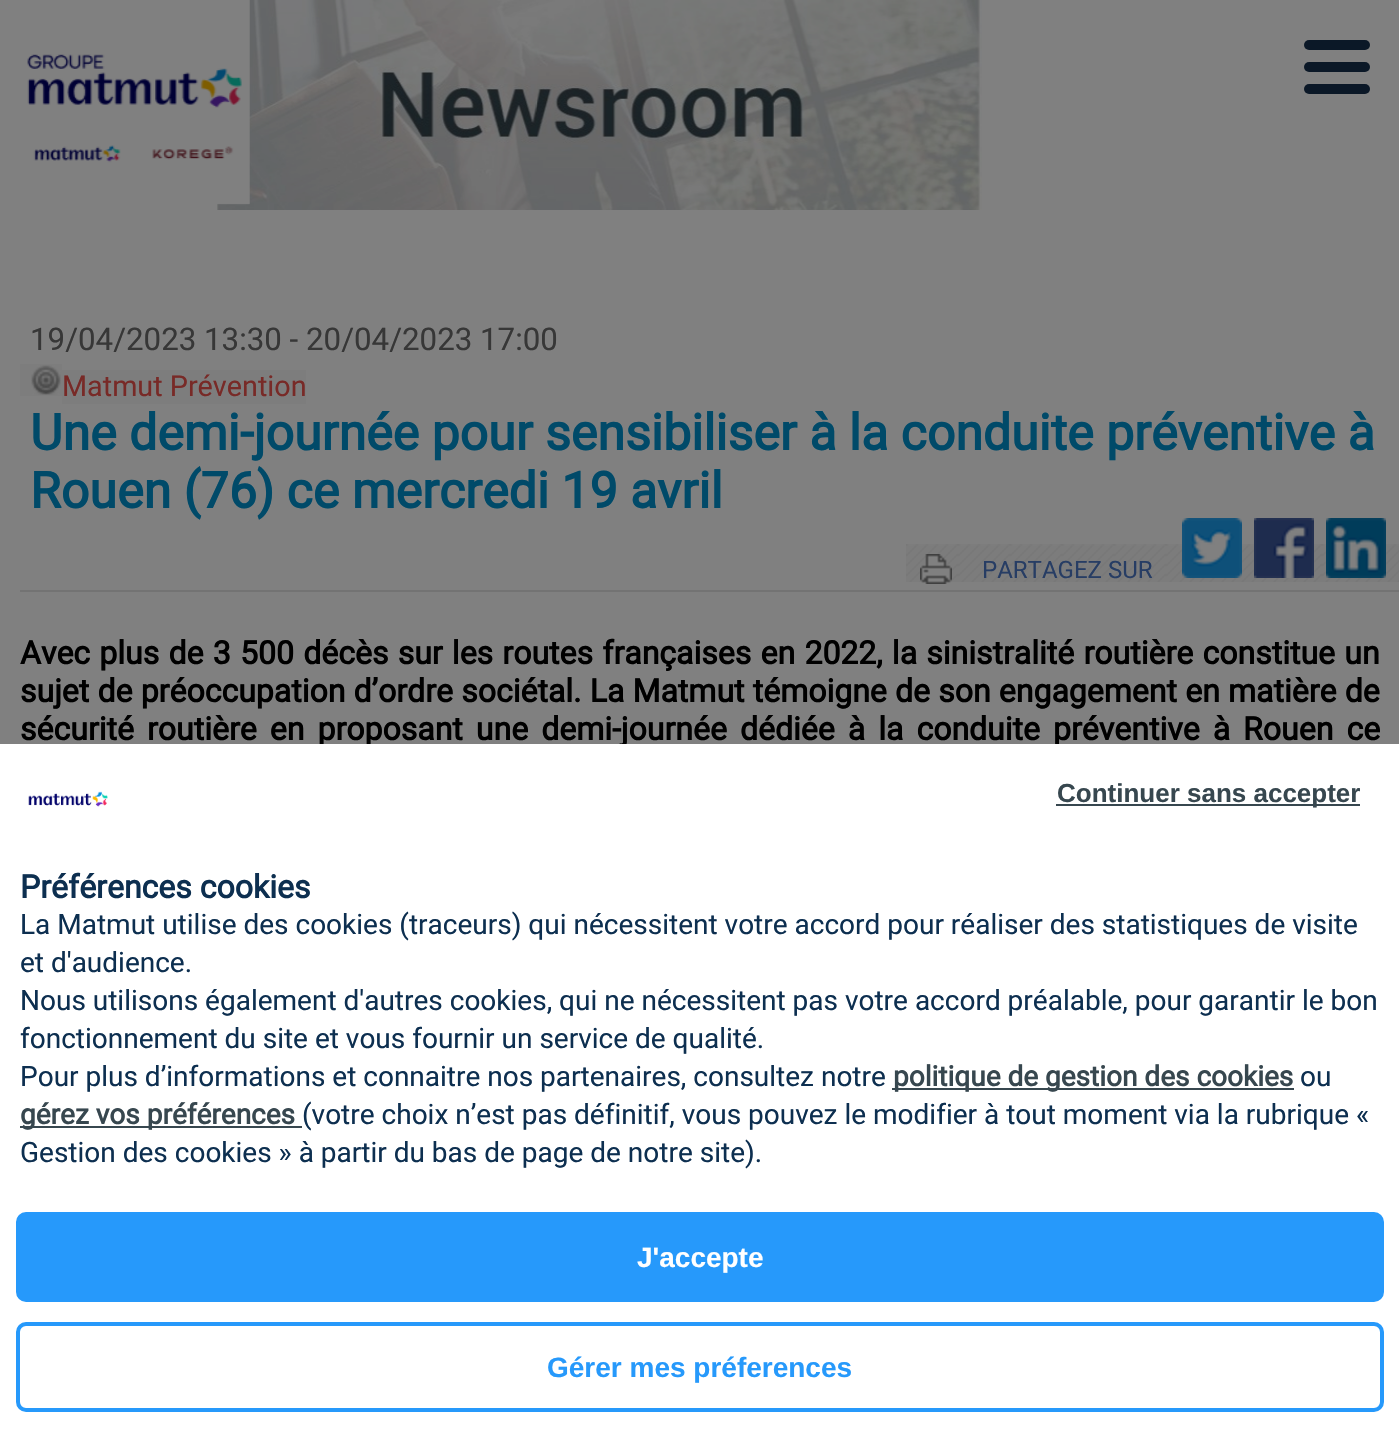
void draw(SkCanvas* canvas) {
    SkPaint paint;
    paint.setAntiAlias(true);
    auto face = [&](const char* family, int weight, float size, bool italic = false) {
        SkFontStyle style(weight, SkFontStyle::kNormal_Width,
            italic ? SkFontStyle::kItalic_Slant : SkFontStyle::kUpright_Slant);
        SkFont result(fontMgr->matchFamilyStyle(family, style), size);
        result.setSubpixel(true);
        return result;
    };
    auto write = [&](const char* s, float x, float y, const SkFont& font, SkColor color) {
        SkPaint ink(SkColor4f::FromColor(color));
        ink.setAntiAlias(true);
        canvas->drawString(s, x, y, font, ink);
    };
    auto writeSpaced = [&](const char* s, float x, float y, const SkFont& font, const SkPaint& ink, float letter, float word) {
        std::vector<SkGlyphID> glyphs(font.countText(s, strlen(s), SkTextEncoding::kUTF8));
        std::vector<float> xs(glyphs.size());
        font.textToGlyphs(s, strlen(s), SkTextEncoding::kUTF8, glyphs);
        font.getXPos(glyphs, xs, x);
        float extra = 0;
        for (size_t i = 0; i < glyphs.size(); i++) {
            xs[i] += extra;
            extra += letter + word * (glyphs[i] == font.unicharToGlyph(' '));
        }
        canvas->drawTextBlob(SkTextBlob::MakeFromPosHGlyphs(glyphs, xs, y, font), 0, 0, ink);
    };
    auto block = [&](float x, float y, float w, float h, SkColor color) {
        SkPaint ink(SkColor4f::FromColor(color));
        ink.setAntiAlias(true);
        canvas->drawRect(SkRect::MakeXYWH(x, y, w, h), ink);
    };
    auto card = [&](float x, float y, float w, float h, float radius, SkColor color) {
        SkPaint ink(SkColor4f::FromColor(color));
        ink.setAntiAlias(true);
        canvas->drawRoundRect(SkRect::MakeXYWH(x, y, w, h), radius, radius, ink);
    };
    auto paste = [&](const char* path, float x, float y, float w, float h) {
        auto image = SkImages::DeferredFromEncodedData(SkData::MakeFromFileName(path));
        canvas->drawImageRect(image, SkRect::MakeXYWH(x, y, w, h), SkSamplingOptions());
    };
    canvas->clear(SkColorSetRGB(128, 128, 128));
    paste("pic1.png", 217, 0, 765, 210);
    paste("pic2.png", 27, 0, 223, 205);
    card(1304, 40, 66, 10, 5, SkColorSetRGB(11, 24, 39));
    card(1304, 62, 66, 10, 5, SkColorSetRGB(11, 24, 39));
    card(1304, 84, 66, 10, 5, SkColorSetRGB(11, 24, 39));
    block(20, 590, 1379, 2, SkColorSetRGB(115, 115, 115));
    auto kFont1 = face("Roboto", 400, 31.25f);
    write("19/04/2023 13:30 - 20/04/2023 17:00", 30, 350, kFont1, SkColorSetRGB(55, 55, 55));
    block(20, 364, 42, 32, SkColorSetRGB(125, 125, 125));
    block(62, 370, 244, 34, SkColorSetRGB(125, 125, 125));
    paste("pic3.png", 31, 365, 30, 30);
    auto kFont2 = face("Roboto", 400, 28.75f);
    write("Matmut Prévention", 62, 396, kFont2, SkColorSetRGB(120, 42, 39));
    auto kFont3 = face("Roboto", 700, 50);
    write("Une demi-journée pour sensibiliser à la conduite préventive à", 30, 450, kFont3, SkColorSetRGB(0, 74, 105));
    write("Rouen (76) ce mercredi 19 avril", 30, 508, kFont3, SkColorSetRGB(0, 74, 105));
    paste("pic4.png", 906, 544, 493, 38);
    paste("pic5.png", 920, 554, 32, 30);
    auto kFont4 = face("Roboto", 400, 24);
    write("PARTAGEZ SUR", 982, 578, kFont4, SkColorSetRGB(39, 61, 100));
    paste("pic6.png", 1182, 518, 60, 60);
    paste("pic7.png", 1254, 518, 60, 60);
    paste("pic8.png", 1326, 518, 60, 60);
    auto kFont5 = face("Roboto", 700, 32);
    paint.setColor(SK_ColorBLACK);
    writeSpaced("Avec plus de 3 500 décès sur les routes françaises en 2022, la sinistralité routière constitue un", 20, 664, kFont5, paint, 0, 1.3f);
    writeSpaced("sujet de préoccupation d’ordre sociétal. La Matmut témoigne de son engagement en matière de", 20, 702, kFont5, paint, 0, 0.25f);
    writeSpaced("sécurité routière en proposant une demi-journée dédiée à la conduite préventive à Rouen ce", 20, 740, kFont5, paint, 0, 5.1f);
    block(0, 744, 1399, 688, SK_ColorWHITE);
    paste("pic9.png", 28, 791, 80, 16);
    block(1056, 804, 304, 2, SkColorSetRGB(55, 71, 79));
    auto kFont6 = face("Liberation Sans", 700, 26);
    write("Continuer sans accepter", 1057, 802, kFont6, SkColorSetRGB(55, 71, 79));
    paint.setColor(SkColorSetRGB(38, 153, 251));
    canvas->drawRoundRect(SkRect::MakeXYWH(18, 1214, 1364, 86), 8, 8, paint);
    paint.setStyle(SkPaint::kStroke_Style);
    paint.setStrokeWidth(4);
    canvas->drawRoundRect(SkRect::MakeXYWH(18, 1214, 1364, 86), 8, 8, paint);
    auto kFont7 = face("Liberation Sans", 700, 28);
    write("J'accepte", 637, 1267, kFont7, SK_ColorWHITE);
    canvas->drawRoundRect(SkRect::MakeXYWH(18, 1324, 1364, 86), 8, 8, paint);
    write("Gérer mes préferences", 547, 1377, kFont7, SkColorSetRGB(38, 153, 251));
    write("Préférences cookies", 20, 898, kFont5, SkColorSetRGB(13, 47, 80));
    auto kFont8 = face("Roboto", 400, 28);
    write("La Matmut utilise des cookies (traceurs) qui nécessitent votre accord pour réaliser des statistiques de visite", 20, 934, kFont8, SkColorSetRGB(13, 47, 80));
    write("et d'audience.", 20, 972, kFont8, SkColorSetRGB(13, 47, 80));
    write("Nous utilisons également d'autres cookies, qui ne nécessitent pas votre accord préalable, pour garantir le bon", 20, 1010, kFont8, SkColorSetRGB(13, 47, 80));
    write("fonctionnement du site et vous fournir un service de qualité.", 20, 1048, kFont8, SkColorSetRGB(13, 47, 80));
    write("Pour plus d’informations et connaitre nos partenaires, consultez notre", 20, 1086, kFont8, SkColorSetRGB(13, 47, 80));
    block(892, 1088, 402, 2, SkColorSetRGB(55, 71, 79));
    auto kFont9 = face("Roboto", 700, 28);
    write("politique de gestion des cookies", 893, 1086, kFont9, SkColorSetRGB(55, 71, 79));
    write("ou", 1300, 1086, kFont8, SkColorSetRGB(13, 47, 80));
    block(20, 1126, 282, 2, SkColorSetRGB(55, 71, 79));
    write("gérez vos préférences", 20, 1124, kFont9, SkColorSetRGB(55, 71, 79));
    write("(votre choix n’est pas définitif, vous pouvez le modifier à tout moment via la rubrique «", 302, 1124, kFont8, SkColorSetRGB(13, 47, 80));
    write("Gestion des cookies » à partir du bas de page de notre site).", 20, 1162, kFont8, SkColorSetRGB(13, 47, 80));
}
